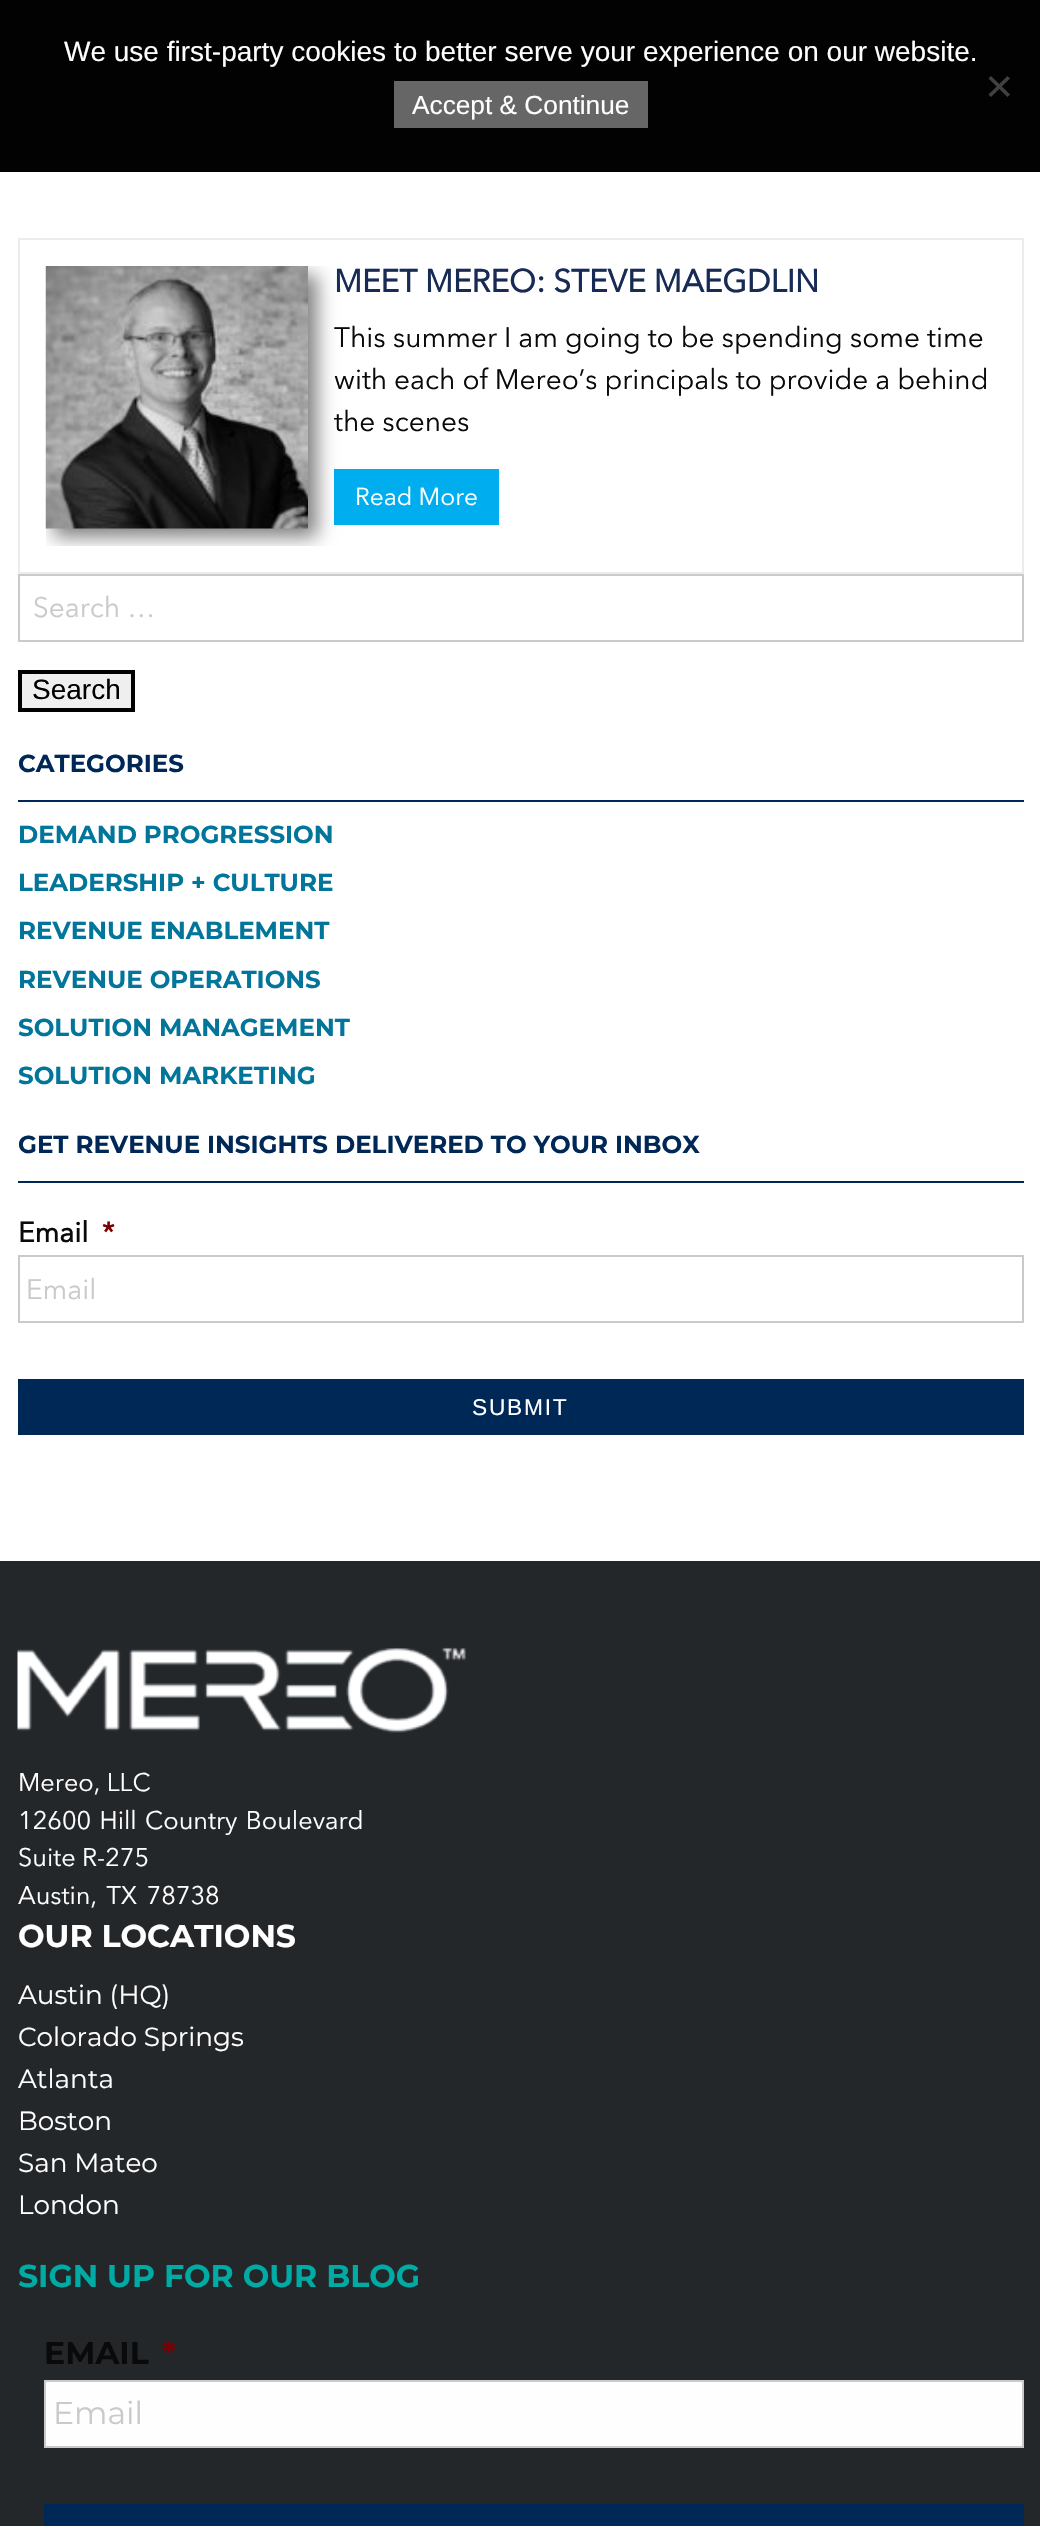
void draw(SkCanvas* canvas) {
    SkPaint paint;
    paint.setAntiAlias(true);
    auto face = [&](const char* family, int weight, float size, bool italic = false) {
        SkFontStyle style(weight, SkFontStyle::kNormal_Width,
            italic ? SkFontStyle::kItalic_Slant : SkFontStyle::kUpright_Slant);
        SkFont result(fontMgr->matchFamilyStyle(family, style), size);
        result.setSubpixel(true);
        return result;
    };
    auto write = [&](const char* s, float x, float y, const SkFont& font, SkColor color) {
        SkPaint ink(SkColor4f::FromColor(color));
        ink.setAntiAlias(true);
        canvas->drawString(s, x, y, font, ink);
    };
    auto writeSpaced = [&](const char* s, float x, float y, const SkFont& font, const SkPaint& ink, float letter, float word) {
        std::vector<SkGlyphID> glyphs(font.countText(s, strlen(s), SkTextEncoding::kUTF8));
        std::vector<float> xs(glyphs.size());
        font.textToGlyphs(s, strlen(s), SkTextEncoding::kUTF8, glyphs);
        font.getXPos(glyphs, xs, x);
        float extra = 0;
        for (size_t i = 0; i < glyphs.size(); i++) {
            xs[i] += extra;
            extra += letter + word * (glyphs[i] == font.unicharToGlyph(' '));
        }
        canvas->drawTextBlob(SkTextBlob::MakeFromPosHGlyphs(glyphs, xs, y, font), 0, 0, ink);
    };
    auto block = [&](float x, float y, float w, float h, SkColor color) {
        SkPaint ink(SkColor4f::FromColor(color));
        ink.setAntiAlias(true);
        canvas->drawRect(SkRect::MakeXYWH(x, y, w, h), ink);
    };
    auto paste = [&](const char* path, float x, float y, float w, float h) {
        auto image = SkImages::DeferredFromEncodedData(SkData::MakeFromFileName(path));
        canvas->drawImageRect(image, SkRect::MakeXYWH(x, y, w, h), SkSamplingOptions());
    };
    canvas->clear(SK_ColorWHITE);
    block(0, 0, 1040, 172, SkColorSetRGB(2, 2, 2));
    auto kFont1 = face("Liberation Sans", 400, 28);
    write("We use first-party cookies to better serve your experience on our website.", 64, 61, kFont1, SK_ColorWHITE);
    paint.setColor(SkColorSetRGB(65, 65, 65));
    canvas->drawPath(SkPathBuilder().moveTo(1007.5f, 76).lineTo(1010, 78.5f).lineTo(991, 97).lineTo(988.5f, 94.5f).close().detach(), paint);
    canvas->drawPath(SkPathBuilder().moveTo(988.5f, 78.5f).lineTo(991, 76).lineTo(1010, 94.5f).lineTo(1007.5f, 97).close().detach(), paint);
    block(394, 81, 254, 47, SkColorSetRGB(102, 102, 102));
    auto kFont2 = face("Liberation Sans", 400, 26.25f);
    write("Accept & Continue", 412, 114, kFont2, SK_ColorWHITE);
    block(18, 238, 1006, 2, SkColorSetRGB(236, 236, 236));
    block(18, 238, 2, 336, SkColorSetRGB(236, 236, 236));
    block(1022, 240, 2, 334, SkColorSetRGB(236, 236, 236));
    block(19, 572, 1005, 2, SkColorSetRGB(236, 236, 236));
    block(334, 469, 165, 56, SkColorSetRGB(0, 174, 239));
    canvas->save();
    canvas->clipRect(SkRect::MakeXYWH(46, 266, 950, 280));
    paint.setColor(SkColorSetARGB(128, 0, 0, 0));
    paint.setMaskFilter(SkMaskFilter::MakeBlur(kNormal_SkBlurStyle, 9));
    canvas->drawRect(SkRect::MakeXYWH(54, 275, 263, 262), paint);
    paint.setMaskFilter(nullptr);
    canvas->restore();
    paste("pic1.png", 45, 266, 263, 263);
    auto kFont3 = face("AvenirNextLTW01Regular", 700, 31.5f);
    write("MEET MEREO: STEVE MAEGDLIN", 334, 292, kFont3, SkColorSetRGB(24, 43, 85));
    auto kFont4 = face("AvenirNextLTW01Regular", 400, 28);
    write("This summer I am going to be spending some time", 334, 347, kFont4, SkColorSetRGB(10, 10, 10));
    write("with each of Mereo’s principals to provide a behind", 334, 389, kFont4, SkColorSetRGB(10, 10, 10));
    write("the scenes", 334, 431, kFont4, SkColorSetRGB(10, 10, 10));
    auto kFont5 = face("AvenirNextLTW01Regular", 400, 24.5f);
    write("Read More", 355, 505, kFont5, SK_ColorWHITE);
    paint.setStyle(SkPaint::kStroke_Style);
    paint.setStrokeWidth(2);
    paint.setColor(SkColorSetRGB(202, 202, 202));
    canvas->drawRect(SkRect::MakeXYWH(19, 575, 1004, 66), paint);
    write("Search …", 33, 617, kFont4, SkColorSetRGB(202, 202, 202));
    paint.setStyle(SkPaint::kFill_Style);
    paint.setColor(SkColorSetRGB(239, 239, 239));
    canvas->drawRect(SkRect::MakeXYWH(20, 672, 113, 38), paint);
    paint.setStyle(SkPaint::kStroke_Style);
    paint.setStrokeWidth(4);
    paint.setColor(SK_ColorBLACK);
    canvas->drawRect(SkRect::MakeXYWH(20, 672, 113, 38), paint);
    write("Search", 32, 699, kFont1, SK_ColorBLACK);
    block(18, 800, 1006, 2, SkColorSetRGB(0, 40, 87));
    auto kFont6 = face("Montserrat", 700, 24.5f);
    write("CATEGORIES", 18, 772, kFont6, SkColorSetRGB(0, 40, 87));
    write("DEMAND PROGRESSION", 18, 843, kFont6, SkColorSetRGB(2, 117, 155));
    write("LEADERSHIP + CULTURE", 18, 891, kFont6, SkColorSetRGB(2, 117, 155));
    write("REVENUE ENABLEMENT", 18, 939, kFont6, SkColorSetRGB(2, 117, 155));
    write("REVENUE OPERATIONS", 18, 988, kFont6, SkColorSetRGB(2, 117, 155));
    write("SOLUTION MANAGEMENT", 18, 1036, kFont6, SkColorSetRGB(2, 117, 155));
    write("SOLUTION MARKETING", 18, 1084, kFont6, SkColorSetRGB(2, 117, 155));
    block(18, 1181, 1006, 2, SkColorSetRGB(0, 40, 87));
    write("GET REVENUE INSIGHTS DELIVERED TO YOUR INBOX", 18, 1153, kFont6, SkColorSetRGB(0, 40, 87));
    auto kFont7 = face("AvenirNextLTW01Regular", 700, 28);
    write("Email", 18, 1242, kFont7, SkColorSetRGB(10, 10, 10));
    write("*", 102, 1242, kFont7, SkColorSetRGB(121, 0, 0));
    paint.setStrokeWidth(2);
    paint.setColor(SkColorSetRGB(202, 202, 202));
    canvas->drawRect(SkRect::MakeXYWH(19, 1256, 1004, 66), paint);
    write("Email", 26, 1299, kFont4, SkColorSetRGB(202, 202, 202));
    block(18, 1379, 1006, 56, SkColorSetRGB(0, 40, 87));
    auto kFont8 = face("Liberation Sans", 400, 22.75f);
    paint.setStyle(SkPaint::kFill_Style);
    paint.setColor(SK_ColorWHITE);
    writeSpaced("SUBMIT", 472, 1415, kFont8, paint, 1.75f, 0);
    block(0, 1561, 1040, 965, SkColorSetRGB(36, 39, 42));
    paste("pic2.png", 17, 1647, 449, 86);
    auto kFont9 = face("AvenirNextLTW01Regular", 400, 25.25f);
    write("Mereo, LLC", 18, 1791, kFont9, SK_ColorWHITE);
    writeSpaced("12600 Hill Country Boulevard", 18, 1829, kFont9, paint, 0, 2);
    write("Suite R-275", 18, 1866, kFont9, SK_ColorWHITE);
    writeSpaced("Austin, TX 78738", 18, 1904, kFont9, paint, 0, 3);
    auto kFont10 = face("Montserrat", 700, 31.5f);
    write("OUR LOCATIONS", 18, 1947, kFont10, SK_ColorWHITE);
    auto kFont11 = face("Montserrat", 400, 26.25f);
    write("Austin (HQ)", 18, 2004, kFont11, SK_ColorWHITE);
    write("Colorado Springs", 18, 2046, kFont11, SK_ColorWHITE);
    write("Atlanta", 18, 2088, kFont11, SK_ColorWHITE);
    write("Boston", 18, 2130, kFont11, SK_ColorWHITE);
    write("San Mateo", 18, 2172, kFont11, SK_ColorWHITE);
    write("London", 18, 2214, kFont11, SK_ColorWHITE);
    write("SIGN UP FOR OUR BLOG", 18, 2287, kFont10, SkColorSetRGB(0, 170, 165));
    write("EMAIL", 44, 2364, kFont10, SkColorSetRGB(10, 10, 10));
    write("*", 162, 2364, kFont10, SkColorSetRGB(121, 0, 0));
    paint.setColor(SkColorSetRGB(254, 254, 254));
    canvas->drawRect(SkRect::MakeXYWH(45, 2381, 978, 66), paint);
    paint.setStyle(SkPaint::kStroke_Style);
    paint.setColor(SkColorSetRGB(202, 202, 202));
    canvas->drawRect(SkRect::MakeXYWH(45, 2381, 978, 66), paint);
    auto kFont12 = face("Montserrat", 400, 31.5f);
    write("Email", 53, 2424, kFont12, SkColorSetRGB(202, 202, 202));
    block(44, 2504, 980, 22, SkColorSetRGB(0, 40, 87));
}
